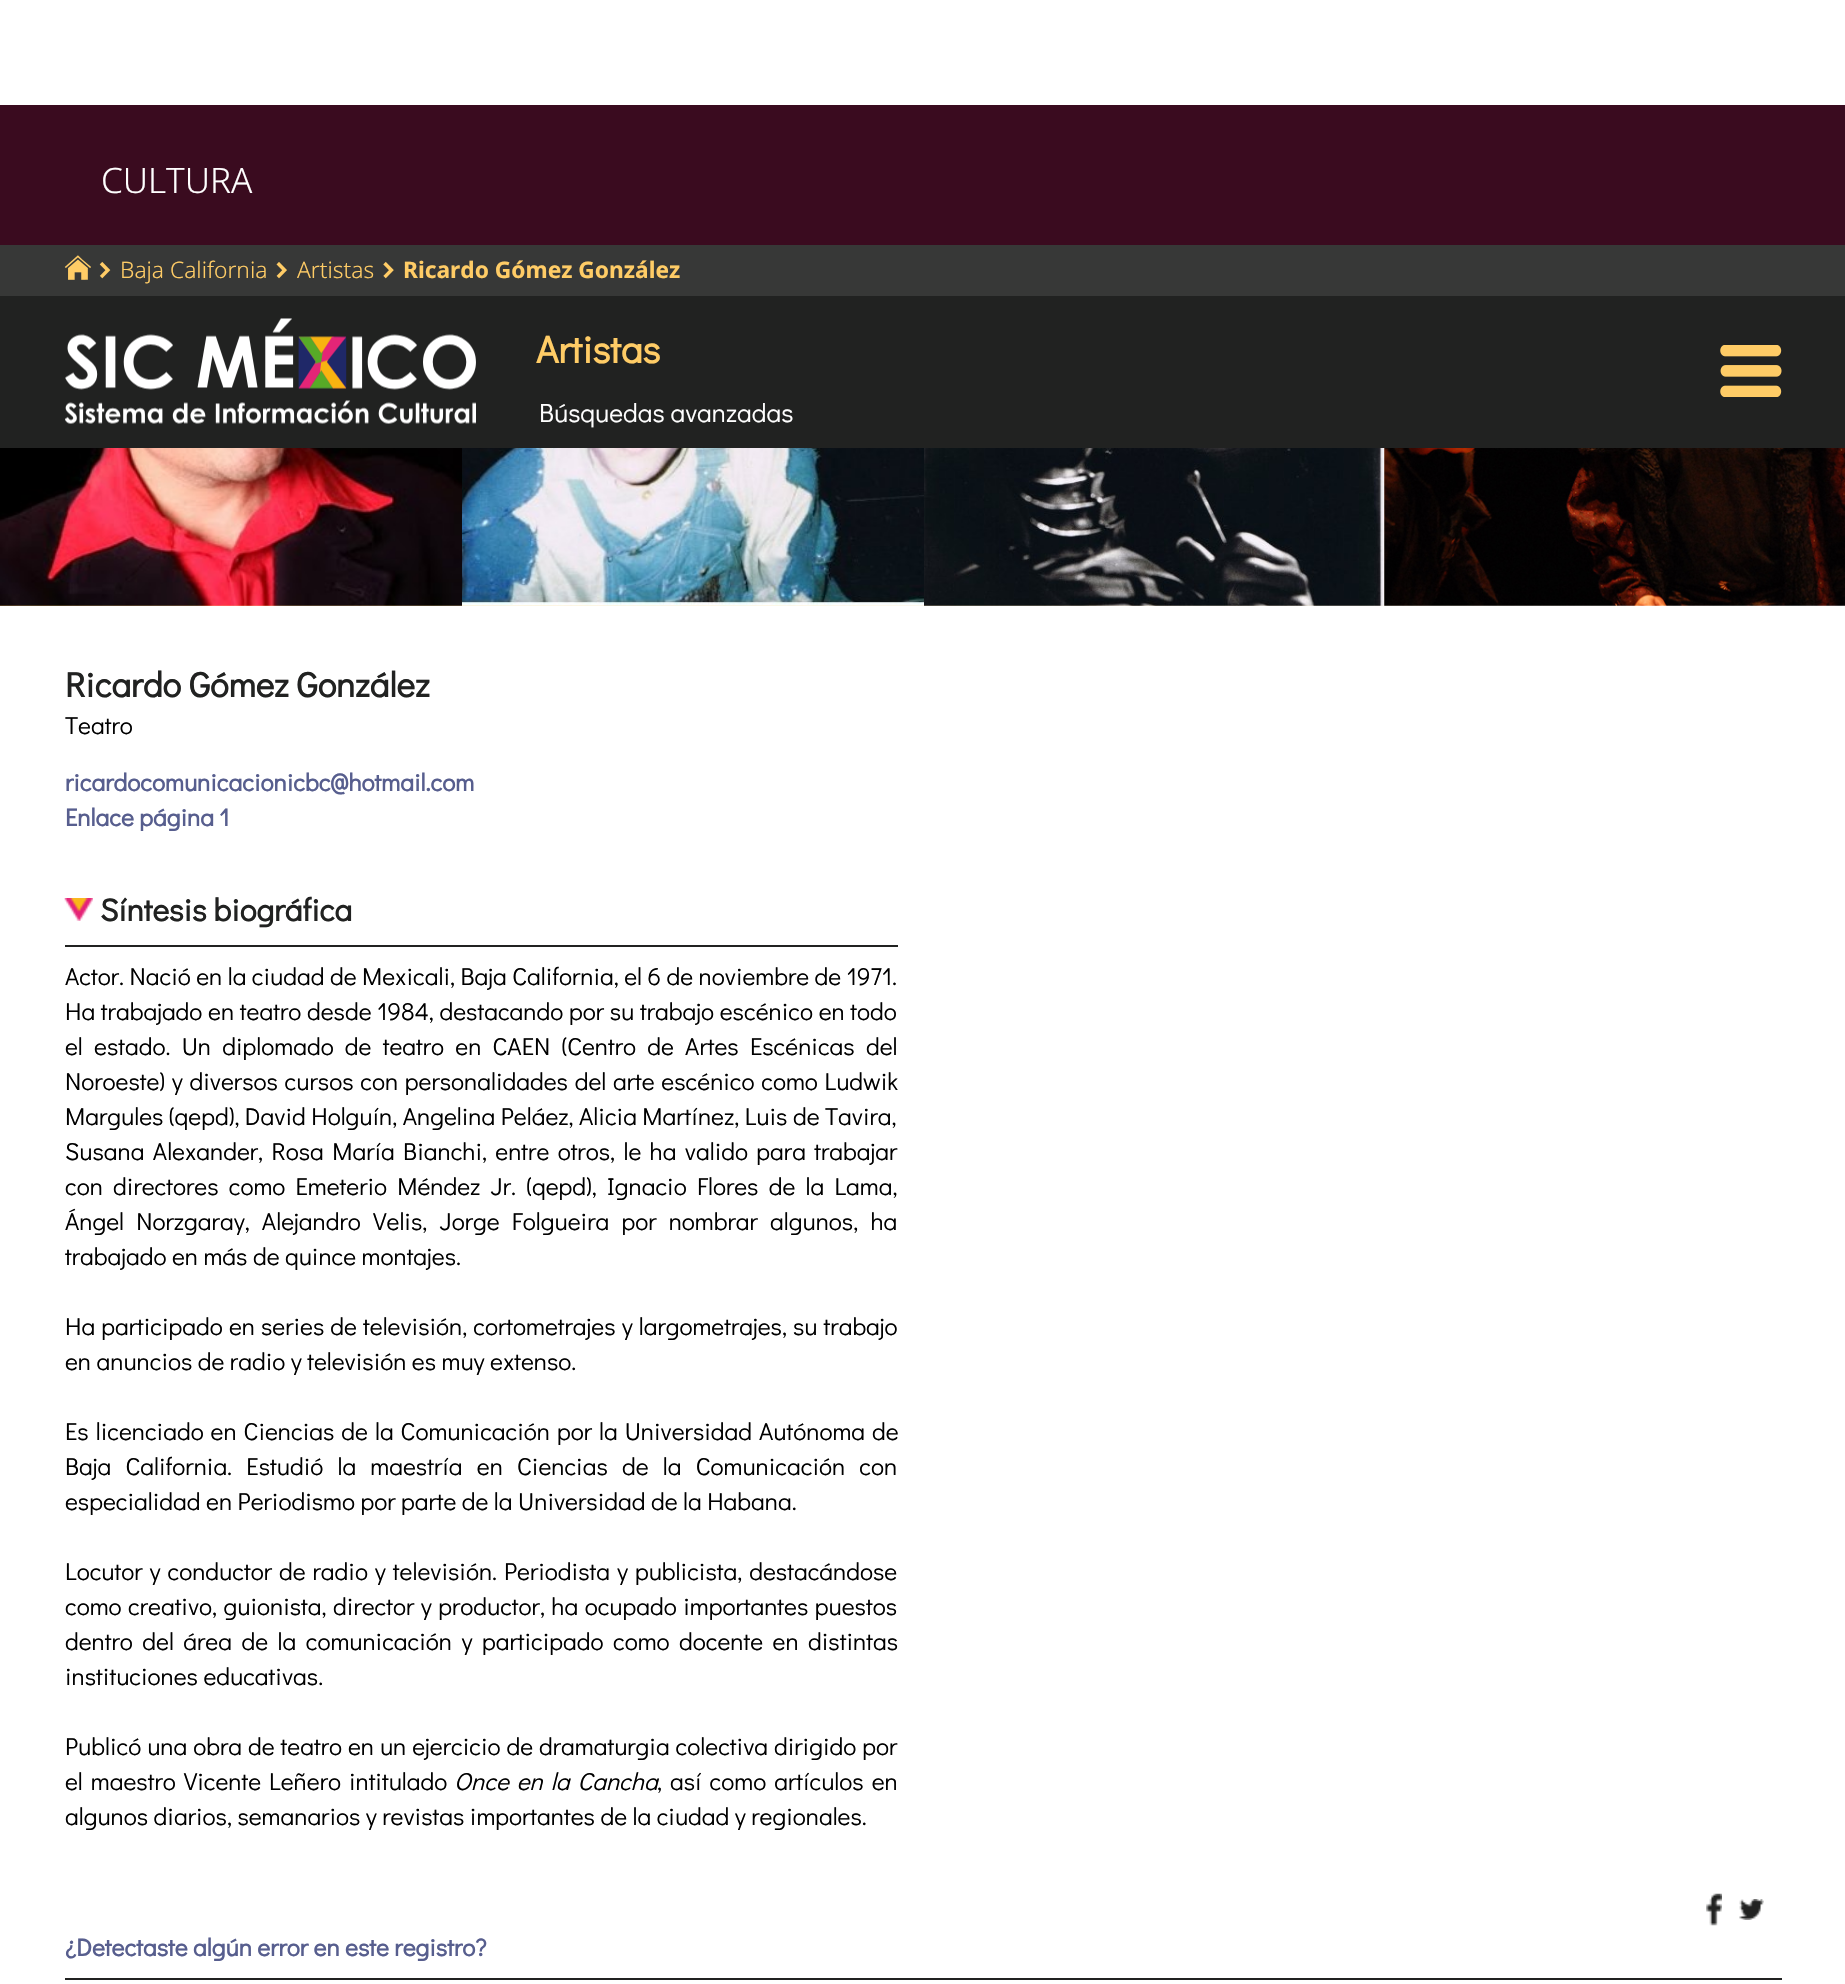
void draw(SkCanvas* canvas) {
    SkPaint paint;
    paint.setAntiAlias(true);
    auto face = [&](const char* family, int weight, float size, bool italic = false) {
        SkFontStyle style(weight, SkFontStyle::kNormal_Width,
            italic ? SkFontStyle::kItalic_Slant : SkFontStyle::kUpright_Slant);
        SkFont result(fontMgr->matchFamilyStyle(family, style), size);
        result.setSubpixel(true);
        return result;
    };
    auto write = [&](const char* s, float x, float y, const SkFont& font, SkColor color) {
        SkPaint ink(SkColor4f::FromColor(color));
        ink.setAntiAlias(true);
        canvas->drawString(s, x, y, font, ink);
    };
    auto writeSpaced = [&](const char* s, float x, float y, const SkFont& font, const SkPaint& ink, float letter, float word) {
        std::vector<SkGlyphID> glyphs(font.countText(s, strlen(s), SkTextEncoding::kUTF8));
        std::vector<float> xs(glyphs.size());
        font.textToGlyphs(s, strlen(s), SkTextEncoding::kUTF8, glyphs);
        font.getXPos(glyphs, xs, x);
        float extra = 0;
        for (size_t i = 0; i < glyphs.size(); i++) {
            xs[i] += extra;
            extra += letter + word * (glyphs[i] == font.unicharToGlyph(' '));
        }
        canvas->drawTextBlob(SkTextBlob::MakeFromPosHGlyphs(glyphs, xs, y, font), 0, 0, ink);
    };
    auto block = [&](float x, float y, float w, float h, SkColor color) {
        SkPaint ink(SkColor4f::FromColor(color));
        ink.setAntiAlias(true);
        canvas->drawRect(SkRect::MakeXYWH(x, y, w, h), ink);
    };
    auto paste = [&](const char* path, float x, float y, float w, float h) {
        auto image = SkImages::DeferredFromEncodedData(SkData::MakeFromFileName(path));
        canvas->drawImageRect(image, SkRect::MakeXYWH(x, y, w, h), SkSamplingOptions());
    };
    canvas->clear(SK_ColorWHITE);
    block(0, 105, 1845, 140, SkColorSetRGB(58, 11, 31));
    auto kFont1 = face("Noto Sans", 300, 35);
    write("CULTURA", 101, 193, kFont1, SK_ColorWHITE);
    block(0, 245, 1845, 51, SkColorSetRGB(55, 56, 55));
    paste("pic1.png", 64, 255, 27, 25);
    paste("pic2.png", 99, 261, 12, 18);
    auto kFont2 = face("Noto Sans", 300, 22.75f);
    write("Baja California", 120, 278, kFont2, SkColorSetRGB(255, 204, 102));
    paste("pic3.png", 276, 262, 11, 17);
    write("Artistas", 297, 278, kFont2, SkColorSetRGB(255, 204, 102));
    paste("pic4.png", 383, 261, 11, 18);
    auto kFont3 = face("Noto Sans", 700, 22.75f);
    write("Ricardo Gómez González", 403, 278, kFont3, SkColorSetRGB(255, 204, 102));
    block(0, 296, 1845, 152, SkColorSetRGB(33, 34, 33));
    paste("pic5.png", 65, 318, 411, 106);
    auto kFont4 = face("Didact Gothic", 700, 38.5f);
    write("Artistas", 536, 363, kFont4, SkColorSetRGB(255, 204, 102));
    auto kFont5 = face("Didact Gothic", 400, 26.25f);
    write("Búsquedas avanzadas", 539, 422, kFont5, SK_ColorWHITE);
    paste("pic6.png", 1720, 345, 62, 52);
    {
        const SkColor colors[] = {SkColorSetRGB(255, 204, 102), SK_ColorWHITE};
        const float stops[] = {0, 1};
        const SkPoint ends[] = {{0, 371}, {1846, 371}};
        paint.setShader(SkGradientShader::MakeLinear(ends, colors, stops, 2, SkTileMode::kClamp));
        paint.setAlpha(255);
    }
    canvas->drawRect(SkRect::MakeXYWH(0, 448, 1816, 158), paint);
    paste("pic7.png", 0, 448, 462, 158);
    paste("pic8.png", 462, 448, 462, 158);
    paste("pic9.png", 924, 448, 461, 158);
    paste("pic10.png", 1384, 448, 461, 158);
    auto kFont6 = face("Didact Gothic", 700, 35);
    write("Ricardo Gómez González", 65, 697, kFont6, SkColorSetRGB(33, 34, 33));
    auto kFont7 = face("Didact Gothic", 400, 24.5f);
    write("Teatro", 65, 734, kFont7, SK_ColorBLACK);
    auto kFont8 = face("Didact Gothic", 700, 24.5f);
    write("ricardocomunicacionicbc@hotmail.com", 65, 791, kFont8, SkColorSetRGB(87, 94, 142));
    write("Enlace página 1", 65, 826, kFont8, SkColorSetRGB(87, 94, 142));
    paste("pic11.png", 64, 898, 29, 23);
    auto kFont9 = face("Didact Gothic", 700, 31.5f);
    write("Síntesis biográfica", 100, 921, kFont9, SkColorSetRGB(33, 34, 33));
    block(65, 945, 833, 2, SkColorSetRGB(33, 34, 33));
    write("Actor. Nació en la ciudad de Mexicali, Baja California, el 6 de noviembre de 1971.", 65, 985, kFont7, SK_ColorBLACK);
    paint.setShader(nullptr);
    paint.setColor(SK_ColorBLACK);
    writeSpaced("Ha trabajado en teatro desde 1984, destacando por su trabajo escénico en todo", 65, 1020, kFont7, paint, 0, 0.25f);
    writeSpaced("el estado. Un diplomado de teatro en CAEN (Centro de Artes Escénicas del", 65, 1055, kFont7, paint, 0, 5.75f);
    writeSpaced("Noroeste) y diversos cursos con personalidades del arte escénico como Ludwik", 65, 1090, kFont7, paint, 0, 1.25f);
    write("Margules (qepd), David Holguín, Angelina Peláez, Alicia Martínez, Luis de Tavira,", 65, 1125, kFont7, SK_ColorBLACK);
    writeSpaced("Susana Alexander, Rosa María Bianchi, entre otros, le ha valido para trabajar", 65, 1160, kFont7, paint, 0, 2.9f);
    writeSpaced("con directores como Emeterio Méndez Jr. (qepd), Ignacio Flores de la Lama,", 65, 1195, kFont7, paint, 0, 4.75f);
    writeSpaced("Ángel Norzgaray, Alejandro Velis, Jorge Folgueira por nombrar algunos, ha", 65, 1230, kFont7, paint, 0, 6.75f);
    write("trabajado en más de quince montajes.", 65, 1265, kFont7, SK_ColorBLACK);
    writeSpaced("Ha participado en series de televisión, cortometrajes y largometrajes, su trabajo", 65, 1335, kFont7, paint, 0, 0.6f);
    write("en anuncios de radio y televisión es muy extenso.", 65, 1370, kFont7, SK_ColorBLACK);
    writeSpaced("Es licenciado en Ciencias de la Comunicación por la Universidad Autónoma de", 65, 1440, kFont7, paint, 0, 1.5f);
    writeSpaced("Baja California. Estudió la maestría en Ciencias de la Comunicación con", 65, 1475, kFont7, paint, 0, 8.75f);
    write("especialidad en Periodismo por parte de la Universidad de la Habana.", 65, 1510, kFont7, SK_ColorBLACK);
    writeSpaced("Locutor y conductor de radio y televisión. Periodista y publicista, destacándose", 65, 1580, kFont7, paint, 0, 1.5f);
    writeSpaced("como creativo, guionista, director y productor, ha ocupado importantes puestos", 65, 1615, kFont7, paint, 0, 1);
    writeSpaced("dentro del área de la comunicación y participado como docente en distintas", 65, 1650, kFont7, paint, 0, 4);
    write("instituciones educativas.", 65, 1685, kFont7, SK_ColorBLACK);
    writeSpaced("Publicó una obra de teatro en un ejercicio de dramaturgia colectiva dirigido por", 65, 1755, kFont7, paint, 0, 0.5f);
    writeSpaced("el maestro Vicente Leñero intitulado", 65, 1790, kFont7, paint, 0, 2.5f);
    auto kFont10 = face("Didact Gothic", 400, 24.5f, true);
    writeSpaced("Once en la Cancha", 454, 1790, kFont10, paint, 0, 2.5f);
    writeSpaced(", así como artículos en", 657, 1790, kFont7, paint, 0, 2.5f);
    write("algunos diarios, semanarios y revistas importantes de la ciudad y regionales.", 65, 1825, kFont7, SK_ColorBLACK);
    paste("pic12.png", 1706, 1893, 16, 33);
    paste("pic13.png", 1739, 1899, 25, 21);
    write("¿Detectaste algún error en este registro?", 65, 1956, kFont8, SkColorSetRGB(87, 94, 142));
    block(65, 1978, 1717, 2, SkColorSetRGB(33, 34, 33));
}
